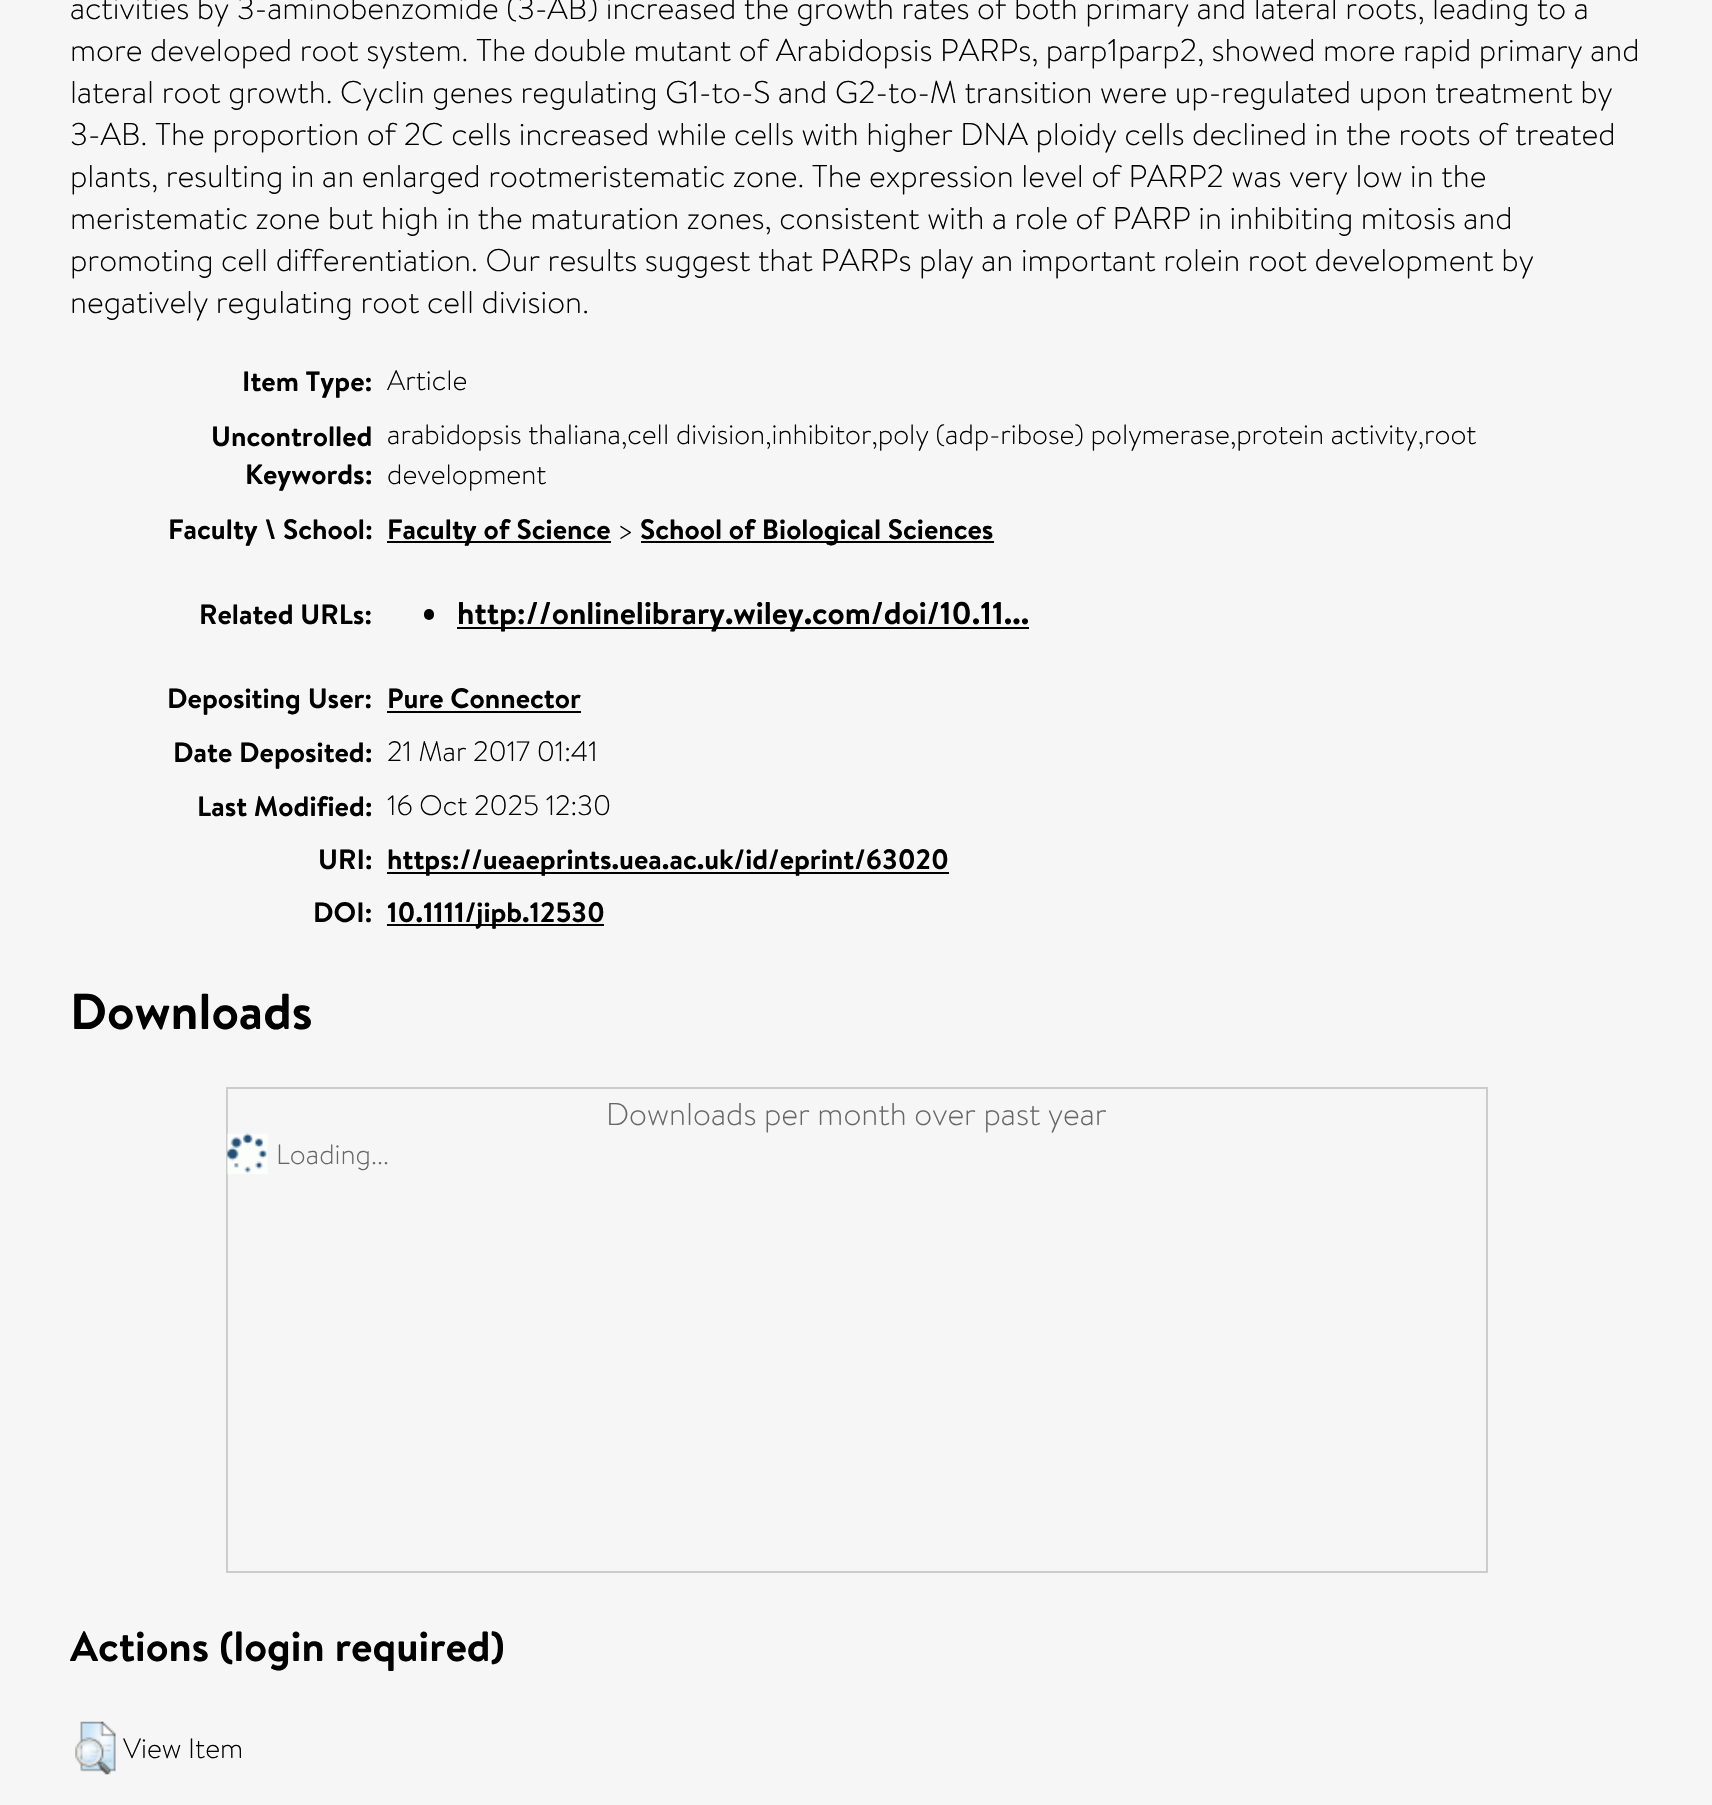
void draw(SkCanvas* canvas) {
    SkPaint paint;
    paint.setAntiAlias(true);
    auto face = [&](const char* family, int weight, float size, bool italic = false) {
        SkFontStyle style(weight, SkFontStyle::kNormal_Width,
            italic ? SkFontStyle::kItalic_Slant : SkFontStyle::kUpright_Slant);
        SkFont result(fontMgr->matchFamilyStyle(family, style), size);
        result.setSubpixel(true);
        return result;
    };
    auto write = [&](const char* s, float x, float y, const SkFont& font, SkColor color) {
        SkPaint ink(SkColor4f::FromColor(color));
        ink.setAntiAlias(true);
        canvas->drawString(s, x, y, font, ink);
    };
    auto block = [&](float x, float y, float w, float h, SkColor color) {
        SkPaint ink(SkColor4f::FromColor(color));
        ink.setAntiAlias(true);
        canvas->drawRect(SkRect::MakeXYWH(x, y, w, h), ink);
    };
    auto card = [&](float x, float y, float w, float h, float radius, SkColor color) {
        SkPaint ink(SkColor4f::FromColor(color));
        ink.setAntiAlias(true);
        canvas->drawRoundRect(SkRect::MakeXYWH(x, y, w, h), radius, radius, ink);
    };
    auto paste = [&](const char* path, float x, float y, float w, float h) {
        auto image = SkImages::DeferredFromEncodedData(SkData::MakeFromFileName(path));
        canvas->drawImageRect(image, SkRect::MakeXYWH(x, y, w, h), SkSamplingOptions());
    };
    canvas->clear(SkColorSetRGB(246, 246, 246));
    auto kFont1 = face("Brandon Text", 300, 31.5f);
    write("activities by 3-aminobenzomide (3-AB) increased the growth rates of both primary and lateral roots, leading to a", 70, 19, kFont1, SK_ColorBLACK);
    write("more developed root system. The double mutant of Arabidopsis PARPs, parp1parp2, showed more rapid primary and", 70, 61, kFont1, SK_ColorBLACK);
    write("lateral root growth. Cyclin genes regulating G1-to-S and G2-to-M transition were up-regulated upon treatment by", 70, 103, kFont1, SK_ColorBLACK);
    write("3-AB. The proportion of 2C cells increased while cells with higher DNA ploidy cells declined in the roots of treated", 70, 145, kFont1, SK_ColorBLACK);
    write("plants, resulting in an enlarged rootmeristematic zone. The expression level of PARP2 was very low in the", 70, 187, kFont1, SK_ColorBLACK);
    write("meristematic zone but high in the maturation zones, consistent with a role of PARP in inhibiting mitosis and", 70, 229, kFont1, SK_ColorBLACK);
    write("promoting cell differentiation. Our results suggest that PARPs play an important rolein root development by", 70, 271, kFont1, SK_ColorBLACK);
    write("negatively regulating root cell division.", 70, 313, kFont1, SK_ColorBLACK);
    auto kFont2 = face("Brandon Text", 700, 28);
    write("Item Type:", 242, 391, kFont2, SK_ColorBLACK);
    auto kFont3 = face("Brandon Text", 300, 28);
    write("Article", 387, 390, kFont3, SK_ColorBLACK);
    write("Uncontrolled", 211, 446, kFont2, SK_ColorBLACK);
    write("Keywords:", 245, 484, kFont2, SK_ColorBLACK);
    write("arabidopsis thaliana,cell division,inhibitor,poly (adp-ribose) polymerase,protein activity,root", 387, 444, kFont3, SK_ColorBLACK);
    write("development", 387, 484, kFont3, SK_ColorBLACK);
    write("Faculty \\ School:", 168, 539, kFont2, SK_ColorBLACK);
    block(387, 541, 224, 2, SK_ColorBLACK);
    write("Faculty of Science", 387, 539, kFont2, SK_ColorBLACK);
    write(">", 617, 539, kFont3, SK_ColorBLACK);
    block(641, 541, 353, 2, SK_ColorBLACK);
    write("School of Biological Sciences", 640, 539, kFont2, SK_ColorBLACK);
    write("Related URLs:", 199, 624, kFont2, SK_ColorBLACK);
    card(424, 609, 10, 11, 5, SK_ColorBLACK);
    block(457, 627, 572, 2, SK_ColorBLACK);
    auto kFont4 = face("Brandon Text", 700, 31.5f);
    write("http://onlinelibrary.wiley.com/doi/10.11...", 457, 624, kFont4, SK_ColorBLACK);
    write("Depositing User:", 167, 708, kFont2, SK_ColorBLACK);
    write("Pure Connector", 387, 708, kFont2, SK_ColorBLACK);
    block(387, 711, 194, 2, SK_ColorBLACK);
    write("Date Deposited:", 173, 762, kFont2, SK_ColorBLACK);
    write("21 Mar 2017 01:41", 387, 761, kFont3, SK_ColorBLACK);
    write("Last Modified:", 197, 816, kFont2, SK_ColorBLACK);
    write("16 Oct 2025 12:30", 387, 815, kFont3, SK_ColorBLACK);
    write("URI:", 318, 869, kFont2, SK_ColorBLACK);
    block(387, 872, 562, 2, SK_ColorBLACK);
    write("https://ueaeprints.uea.ac.uk/id/eprint/63020", 387, 869, kFont2, SK_ColorBLACK);
    write("DOI:", 313, 922, kFont2, SK_ColorBLACK);
    block(387, 924, 217, 2, SK_ColorBLACK);
    write("10.1111/jipb.12530", 387, 922, kFont2, SK_ColorBLACK);
    auto kFont5 = face("Brandon Text", 700, 50.5f);
    write("Downloads", 70, 1029, kFont5, SK_ColorBLACK);
    paint.setStyle(SkPaint::kStroke_Style);
    paint.setStrokeWidth(2);
    paint.setColor(SkColorSetRGB(204, 204, 204));
    canvas->drawRect(SkRect::MakeXYWH(227, 1088, 1260, 484), paint);
    write("Downloads per month over past year", 606, 1125, kFont1, SkColorSetRGB(102, 102, 102));
    paste("pic1.png", 227, 1133, 41, 41);
    write("Loading...", 276, 1164, kFont3, SkColorSetRGB(102, 102, 102));
    auto kFont6 = face("Brandon Text", 700, 42);
    write("Actions (login required)", 70, 1661, kFont6, SK_ColorBLACK);
    paste("pic2.png", 75, 1721, 41, 54);
    write("View Item", 123, 1758, kFont3, SK_ColorBLACK);
}
